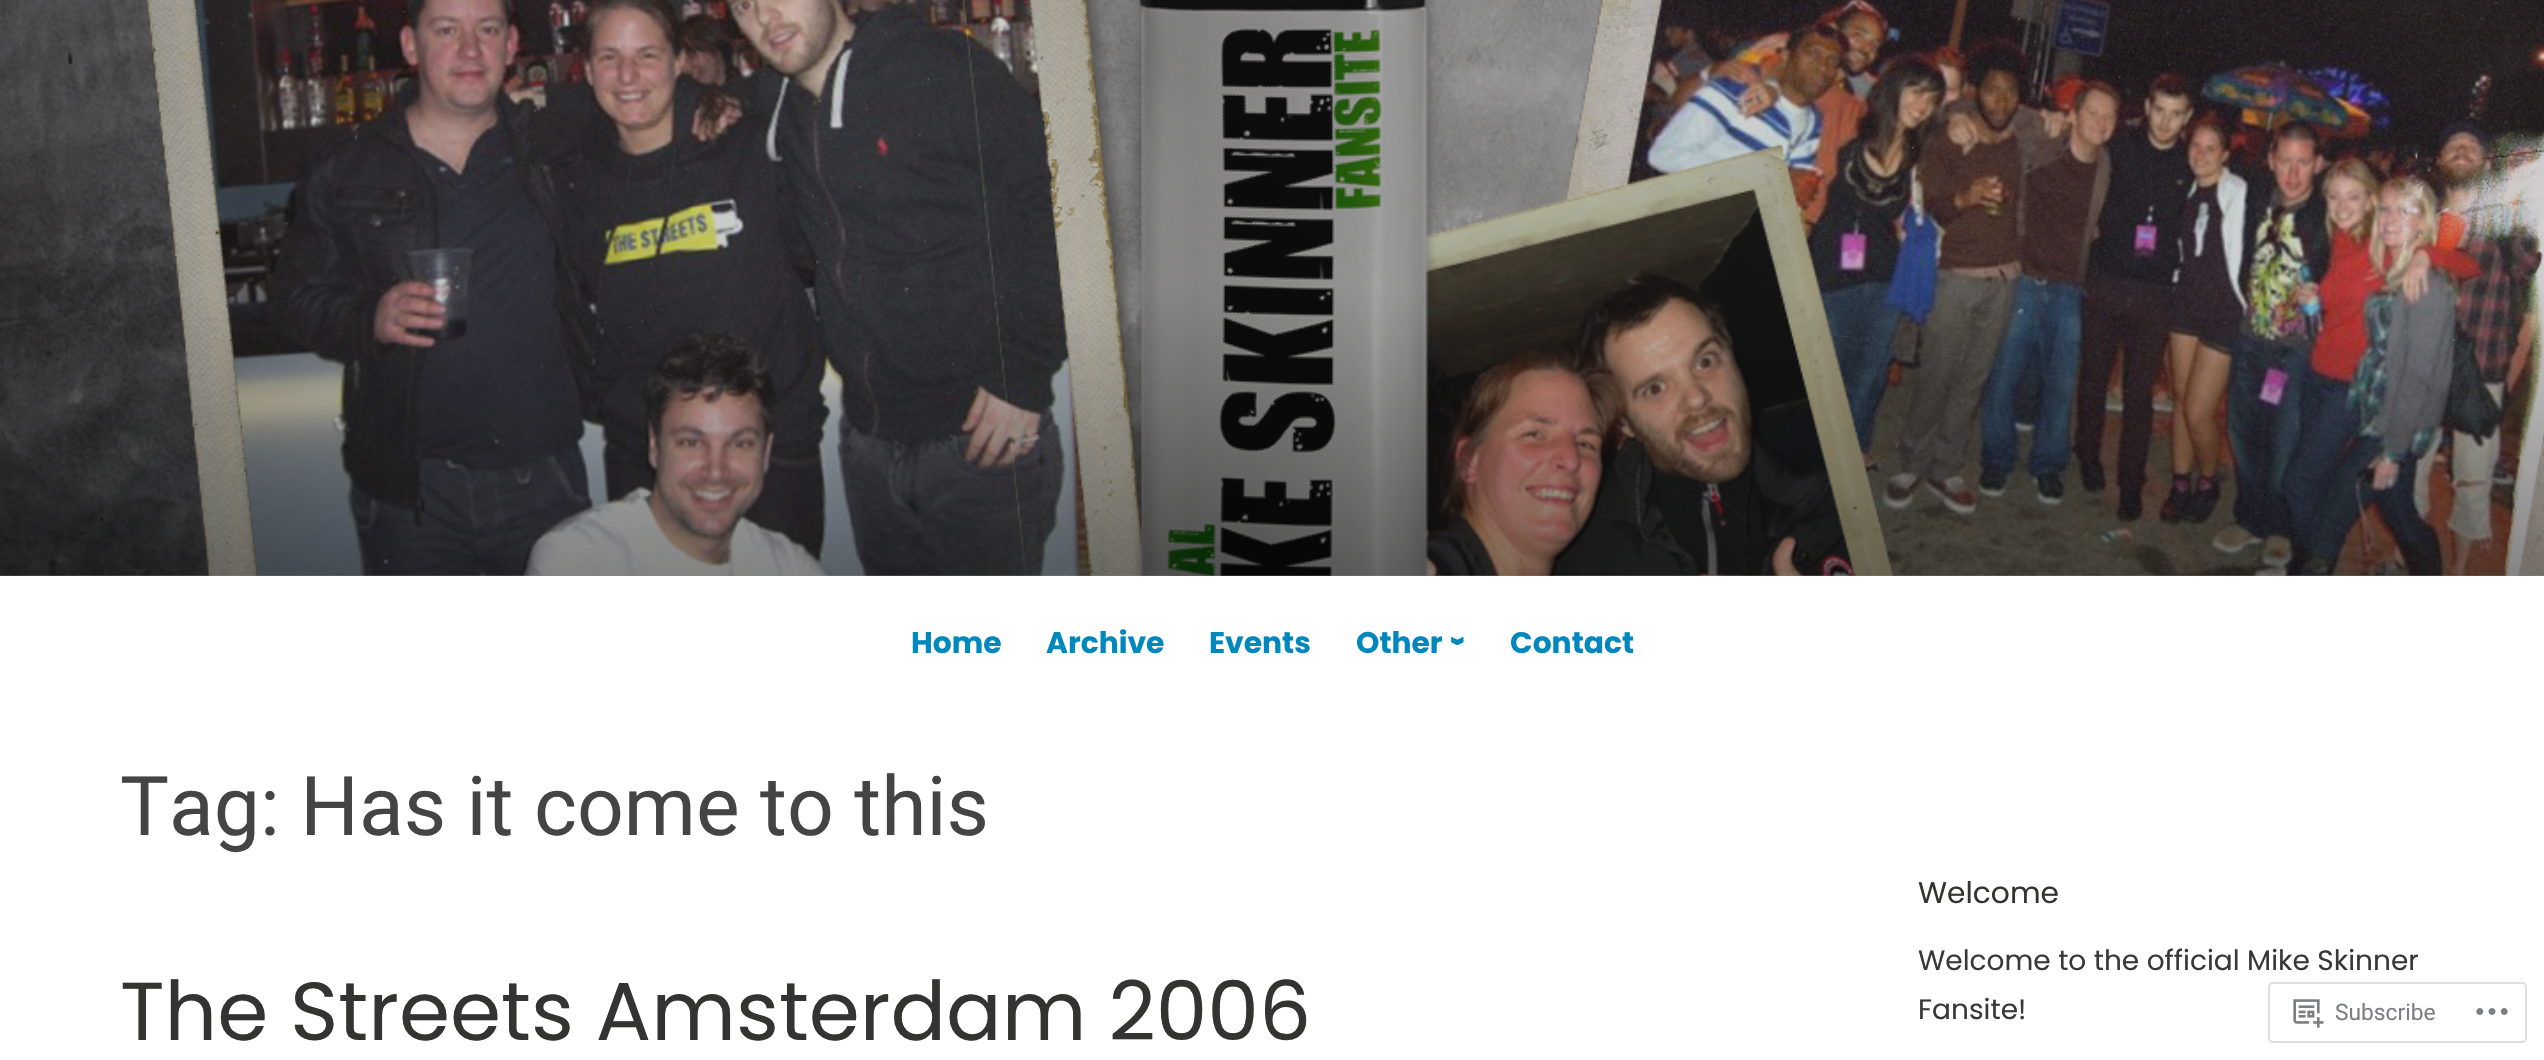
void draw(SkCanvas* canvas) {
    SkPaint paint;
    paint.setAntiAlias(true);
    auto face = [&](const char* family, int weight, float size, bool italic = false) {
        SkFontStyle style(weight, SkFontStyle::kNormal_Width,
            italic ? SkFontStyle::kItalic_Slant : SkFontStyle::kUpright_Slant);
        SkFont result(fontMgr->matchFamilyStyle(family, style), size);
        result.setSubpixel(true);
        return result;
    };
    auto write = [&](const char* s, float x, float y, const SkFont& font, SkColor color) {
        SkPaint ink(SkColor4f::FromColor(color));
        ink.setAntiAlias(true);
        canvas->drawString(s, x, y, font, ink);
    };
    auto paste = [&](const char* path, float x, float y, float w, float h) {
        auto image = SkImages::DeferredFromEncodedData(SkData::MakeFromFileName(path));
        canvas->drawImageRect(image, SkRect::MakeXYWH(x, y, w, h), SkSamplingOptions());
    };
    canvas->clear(SK_ColorWHITE);
    paste("pic1.png", 0, 0, 2544, 576);
    {
        const SkColor colors[] = {SkColorSetARGB(38, 0, 0, 0), SkColorSetARGB(115, 0, 0, 0)};
        const float stops[] = {0.5f, 1};
        const SkPoint ends[] = {{1272, 0}, {1272, 576}};
        paint.setShader(SkGradientShader::MakeLinear(ends, colors, stops, 2, SkTileMode::kClamp));
        paint.setAlpha(255);
    }
    canvas->drawRect(SkRect::MakeXYWH(0, 0, 2544, 576), paint);
    auto kFont1 = face("Poppins", 700, 29.75f);
    write("Home", 911, 653, kFont1, SkColorSetRGB(0, 135, 190));
    write("Archive", 1046, 653, kFont1, SkColorSetRGB(0, 135, 190));
    write("Events", 1209, 653, kFont1, SkColorSetRGB(0, 135, 190));
    write("Other", 1356, 653, kFont1, SkColorSetRGB(0, 135, 190));
    auto kFont2 = face("Poppins", 700, 35);
    canvas->save();
    canvas->rotate(90, 1447, 635);
    write("›", 1447, 635, kFont2, SkColorSetRGB(0, 135, 190));
    canvas->restore();
    write("Contact", 1510, 653, kFont1, SkColorSetRGB(0, 135, 190));
    auto kFont3 = face("Roboto", 400, 82.25f);
    write("Tag: Has it come to this", 120, 835, kFont3, SkColorSetRGB(68, 68, 68));
    auto kFont4 = face("Poppins", 400, 82.25f);
    write("The Streets Amsterdam 2006", 120, 1040, kFont4, SkColorSetRGB(51, 51, 50));
    auto kFont5 = face("Poppins", 400, 29.75f);
    write("Welcome", 1918, 903, kFont5, SkColorSetRGB(51, 51, 50));
    auto kFont6 = face("Poppins", 400, 28);
    write("Welcome to the official Mike Skinner", 1918, 970, kFont6, SkColorSetRGB(56, 56, 56));
    write("Fansite!", 1918, 1019, kFont6, SkColorSetRGB(56, 56, 56));
    paint.setStyle(SkPaint::kStroke_Style);
    paint.setStrokeWidth(2);
    paint.setShader(nullptr);
    paint.setColor(SkColorSetRGB(221, 221, 223));
    canvas->drawRoundRect(SkRect::MakeXYWH(2269, 983, 257, 59), 4, 4, paint);
    paste("pic2.png", 2293, 999, 31, 29);
    auto kFont7 = face("Roboto", 400, 22.75f);
    write("Subscribe", 2335, 1020, kFont7, SkColorSetRGB(123, 127, 133));
    paste("pic3.png", 2476, 1008, 32, 7);
}
